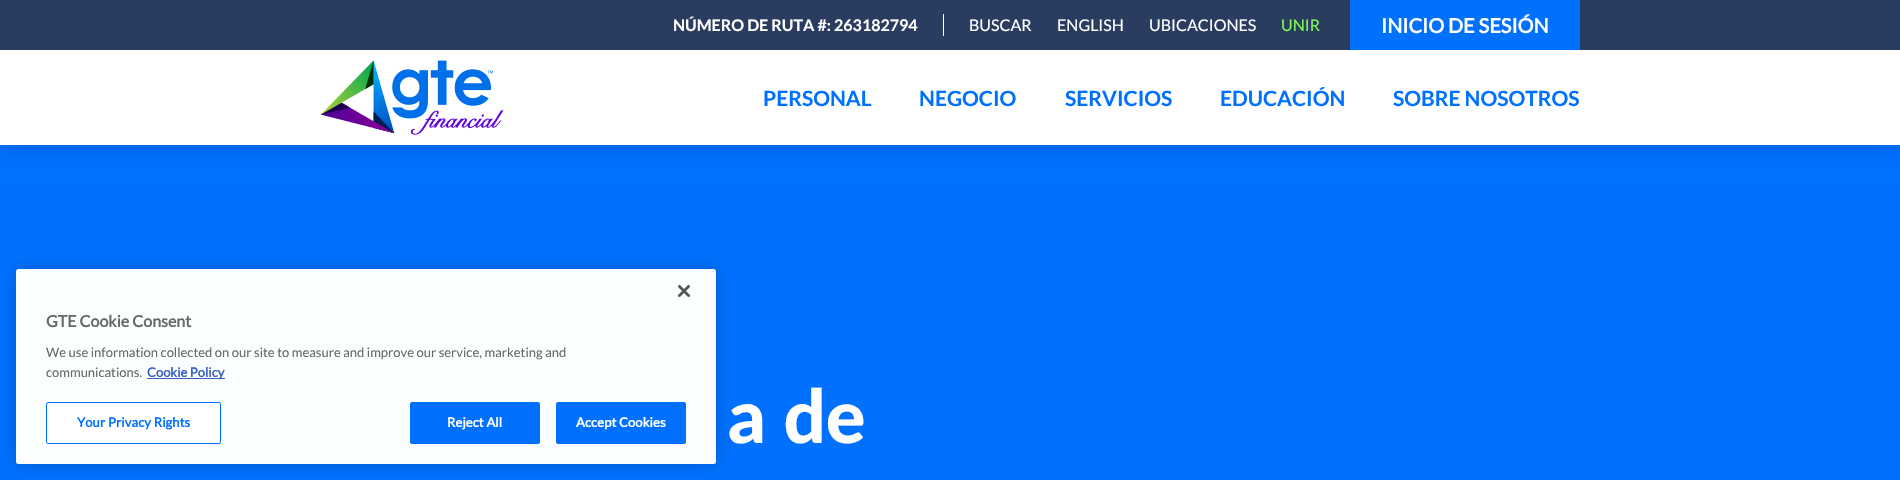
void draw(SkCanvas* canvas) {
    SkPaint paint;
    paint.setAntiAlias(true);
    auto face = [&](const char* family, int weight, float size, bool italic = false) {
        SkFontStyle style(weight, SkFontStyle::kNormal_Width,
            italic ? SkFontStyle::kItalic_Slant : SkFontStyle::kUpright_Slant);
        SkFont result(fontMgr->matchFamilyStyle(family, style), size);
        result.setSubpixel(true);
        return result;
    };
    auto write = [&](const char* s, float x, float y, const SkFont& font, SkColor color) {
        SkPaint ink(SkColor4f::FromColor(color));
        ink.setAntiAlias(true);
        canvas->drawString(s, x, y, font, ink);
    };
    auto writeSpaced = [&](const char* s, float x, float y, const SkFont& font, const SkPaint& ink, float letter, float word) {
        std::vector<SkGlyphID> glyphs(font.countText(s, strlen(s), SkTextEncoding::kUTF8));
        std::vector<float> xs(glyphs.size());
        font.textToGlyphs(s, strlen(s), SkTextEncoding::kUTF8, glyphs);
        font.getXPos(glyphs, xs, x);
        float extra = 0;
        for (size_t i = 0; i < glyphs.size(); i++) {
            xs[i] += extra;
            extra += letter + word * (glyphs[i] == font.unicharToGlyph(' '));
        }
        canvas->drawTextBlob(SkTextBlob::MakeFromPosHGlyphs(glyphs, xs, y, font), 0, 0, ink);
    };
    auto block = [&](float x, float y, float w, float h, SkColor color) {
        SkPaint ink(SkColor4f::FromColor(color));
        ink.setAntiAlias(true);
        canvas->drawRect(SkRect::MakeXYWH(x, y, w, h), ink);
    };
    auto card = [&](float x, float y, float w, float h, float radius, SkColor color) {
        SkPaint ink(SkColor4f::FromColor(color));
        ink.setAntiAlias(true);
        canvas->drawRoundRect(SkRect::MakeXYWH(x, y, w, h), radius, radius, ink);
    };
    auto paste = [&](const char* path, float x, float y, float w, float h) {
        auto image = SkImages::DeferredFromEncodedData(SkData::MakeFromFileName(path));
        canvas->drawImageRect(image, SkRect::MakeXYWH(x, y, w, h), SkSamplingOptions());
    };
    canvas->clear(SkColorSetRGB(0, 113, 255));
    paint.setColor(SkColorSetARGB(51, 0, 0, 0));
    paint.setMaskFilter(SkMaskFilter::MakeBlur(kNormal_SkBlurStyle, 9));
    canvas->drawRoundRect(SkRect::MakeXYWH(16, 269, 700, 195), 2.5f, 2.5f, paint);
    paint.setMaskFilter(nullptr);
    card(16, 269, 700, 195, 2.5f, SkColorSetRGB(251, 255, 255));
    paste("pic1.png", 678, 285, 12, 12);
    auto kFont1 = face("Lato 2", 700, 16);
    write("GTE Cookie Consent", 46, 327, kFont1, SkColorSetRGB(105, 105, 105));
    auto kFont2 = face("Lato", 400, 13);
    write("We use information collected on our site to measure and improve our service, marketing and", 46, 357, kFont2, SkColorSetRGB(105, 105, 105));
    write("communications.", 46, 377, kFont2, SkColorSetRGB(105, 105, 105));
    block(147, 378, 78, 1, SkColorSetRGB(56, 96, 190));
    auto kFont3 = face("Lato 2", 700, 13);
    write("Cookie Policy", 147, 377, kFont3, SkColorSetRGB(56, 96, 190));
    paint.setColor(SK_ColorWHITE);
    canvas->drawRoundRect(SkRect::MakeXYWH(46.5f, 402.5f, 174, 41), 1.5f, 1.5f, paint);
    paint.setStyle(SkPaint::kStroke_Style);
    paint.setStrokeWidth(1);
    paint.setColor(SkColorSetRGB(0, 113, 255));
    canvas->drawRoundRect(SkRect::MakeXYWH(46.5f, 402.5f, 174, 41), 1.5f, 1.5f, paint);
    paint.setStyle(SkPaint::kFill_Style);
    writeSpaced("Your Privacy Rights", 77, 427, kFont3, paint, 0.1f, 0);
    canvas->drawRoundRect(SkRect::MakeXYWH(410.5f, 402.5f, 129, 41), 1.5f, 1.5f, paint);
    paint.setStyle(SkPaint::kStroke_Style);
    canvas->drawRoundRect(SkRect::MakeXYWH(410.5f, 402.5f, 129, 41), 1.5f, 1.5f, paint);
    paint.setStyle(SkPaint::kFill_Style);
    paint.setColor(SK_ColorWHITE);
    writeSpaced("Reject All", 447, 427, kFont3, paint, 0.1f, 0);
    paint.setColor(SkColorSetRGB(0, 113, 255));
    canvas->drawRoundRect(SkRect::MakeXYWH(556.5f, 402.5f, 129, 41), 1.5f, 1.5f, paint);
    paint.setStyle(SkPaint::kStroke_Style);
    canvas->drawRoundRect(SkRect::MakeXYWH(556.5f, 402.5f, 129, 41), 1.5f, 1.5f, paint);
    paint.setStyle(SkPaint::kFill_Style);
    paint.setColor(SK_ColorWHITE);
    writeSpaced("Accept Cookies", 576, 427, kFont3, paint, 0.1f, 0);
    paint.setColor(SkColorSetARGB(77, 0, 55, 155));
    paint.setMaskFilter(SkMaskFilter::MakeBlur(kNormal_SkBlurStyle, 10));
    canvas->drawRect(SkRect::MakeXYWH(0, 5, 1900, 145), paint);
    paint.setMaskFilter(nullptr);
    {
        const SkColor colors[] = {SK_ColorWHITE, SkColorSetRGB(223, 234, 250)};
        const float stops[] = {0.68f, 1};
        const SkPoint ends[] = {{950, 145}, {950, 0}};
        paint.setShader(SkGradientShader::MakeLinear(ends, colors, stops, 2, SkTileMode::kClamp));
        paint.setAlpha(255);
    }
    canvas->drawRect(SkRect::MakeXYWH(0, 50, 1900, 95), paint);
    block(0, 0, 1900, 50, SkColorSetRGB(42, 60, 96));
    block(943, 14, 1, 22, SK_ColorWHITE);
    auto kFont4 = face("Lato", 700, 16);
    write("NÚMERO DE RUTA #: 263182794", 673, 31, kFont4, SK_ColorWHITE);
    auto kFont5 = face("Lato", 400, 16);
    write("BUSCAR", 969, 31, kFont5, SK_ColorWHITE);
    write("ENGLISH", 1057, 31, kFont5, SK_ColorWHITE);
    write("UBICACIONES", 1149, 31, kFont5, SK_ColorWHITE);
    write("UNIR", 1281, 31, kFont5, SkColorSetRGB(127, 250, 86));
    block(1350, 0, 230, 50, SkColorSetRGB(0, 113, 255));
    auto kFont6 = face("Lato 2", 700, 20);
    write("INICIO DE SESIÓN", 1381, 33, kFont6, SK_ColorWHITE);
    paste("pic2.png", 320, 60, 184, 75);
    auto kFont7 = face("Lato", 700, 21);
    write("PERSONAL", 763, 106, kFont7, SkColorSetRGB(0, 113, 255));
    write("NEGOCIO", 919, 106, kFont7, SkColorSetRGB(0, 113, 255));
    write("SERVICIOS", 1065, 106, kFont7, SkColorSetRGB(0, 113, 255));
    write("EDUCACIÓN", 1220, 106, kFont7, SkColorSetRGB(0, 113, 255));
    write("SOBRE NOSOTROS", 1393, 106, kFont7, SkColorSetRGB(0, 113, 255));
    auto kFont8 = face("Lato", 900, 74);
    write("a de", 728, 443, kFont8, SK_ColorWHITE);
}
